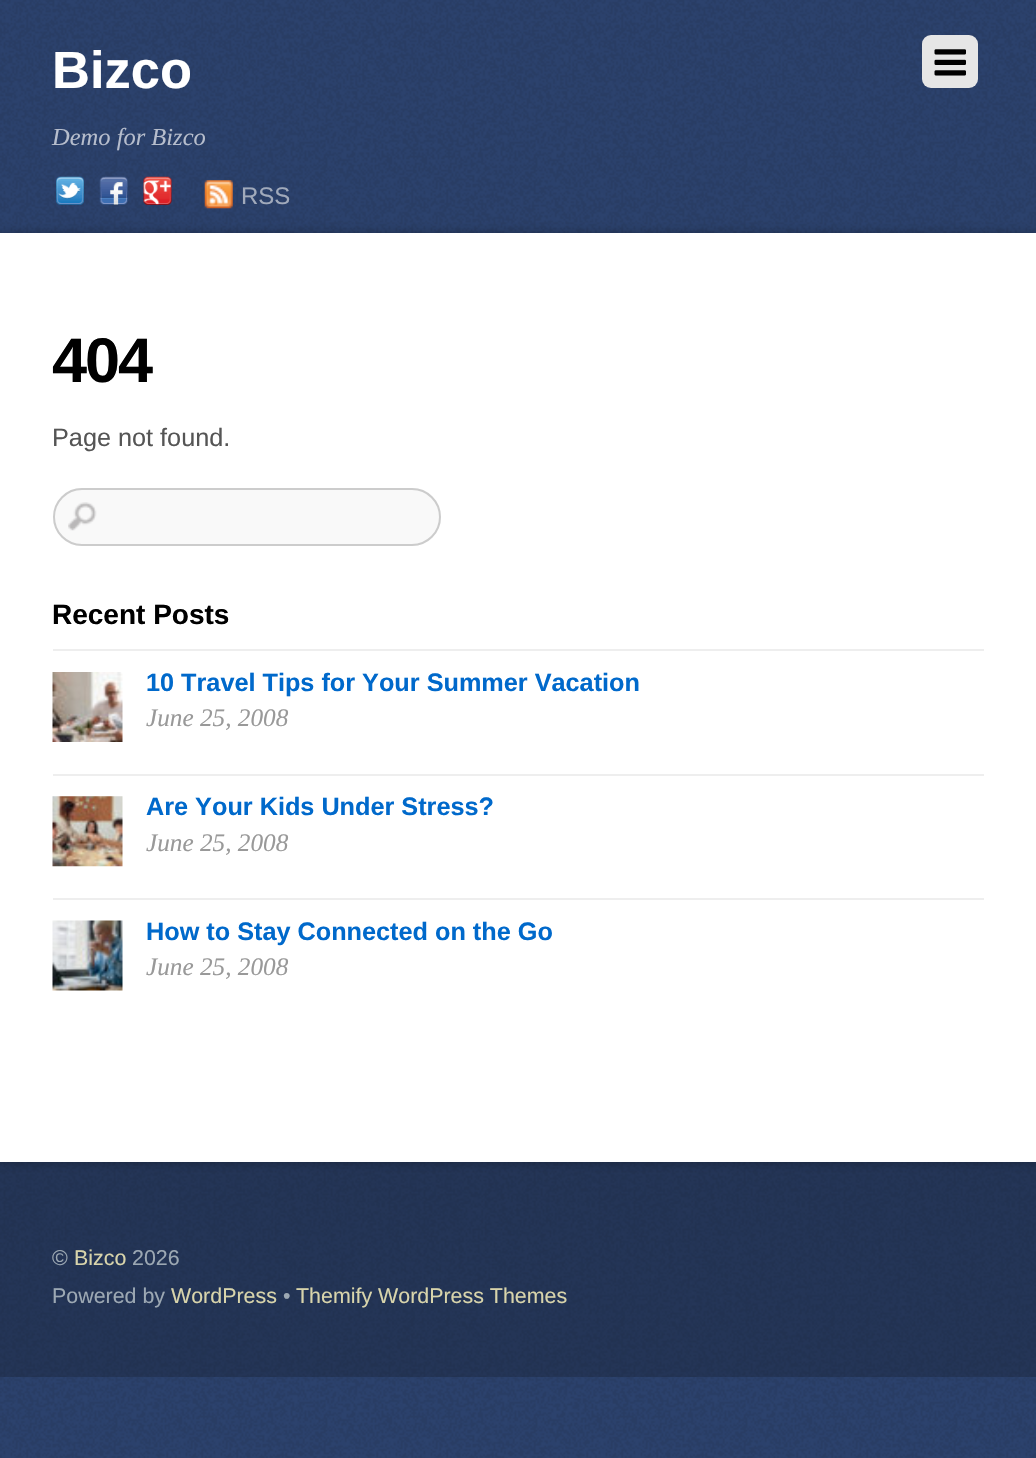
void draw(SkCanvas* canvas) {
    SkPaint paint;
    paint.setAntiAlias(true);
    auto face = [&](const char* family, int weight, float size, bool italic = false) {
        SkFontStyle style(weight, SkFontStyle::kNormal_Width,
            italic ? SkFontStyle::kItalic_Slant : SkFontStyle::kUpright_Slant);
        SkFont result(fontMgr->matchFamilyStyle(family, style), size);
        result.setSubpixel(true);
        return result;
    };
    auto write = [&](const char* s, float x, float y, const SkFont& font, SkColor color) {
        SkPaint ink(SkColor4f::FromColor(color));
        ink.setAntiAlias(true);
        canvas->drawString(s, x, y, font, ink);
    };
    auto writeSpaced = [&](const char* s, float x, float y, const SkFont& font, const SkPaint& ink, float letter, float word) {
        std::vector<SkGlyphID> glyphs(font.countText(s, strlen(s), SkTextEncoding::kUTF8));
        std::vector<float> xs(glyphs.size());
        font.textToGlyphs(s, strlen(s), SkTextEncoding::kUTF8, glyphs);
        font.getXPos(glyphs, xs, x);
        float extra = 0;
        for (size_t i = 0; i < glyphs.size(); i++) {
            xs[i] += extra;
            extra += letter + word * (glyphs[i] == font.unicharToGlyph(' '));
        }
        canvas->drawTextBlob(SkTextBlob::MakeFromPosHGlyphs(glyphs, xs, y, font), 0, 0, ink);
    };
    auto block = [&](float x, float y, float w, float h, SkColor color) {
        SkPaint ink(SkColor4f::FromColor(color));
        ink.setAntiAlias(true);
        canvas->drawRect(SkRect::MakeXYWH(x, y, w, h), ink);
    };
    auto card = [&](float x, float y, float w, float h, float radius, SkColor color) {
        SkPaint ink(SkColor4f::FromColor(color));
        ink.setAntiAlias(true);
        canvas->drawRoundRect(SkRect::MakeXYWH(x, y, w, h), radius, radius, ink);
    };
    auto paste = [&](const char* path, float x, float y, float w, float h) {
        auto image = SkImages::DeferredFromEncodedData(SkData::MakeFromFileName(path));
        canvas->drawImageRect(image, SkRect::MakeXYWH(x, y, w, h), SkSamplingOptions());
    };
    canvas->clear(SK_ColorWHITE);
    paste("pic1.png", 0, 0, 1036, 1458);
    auto kFont1 = face("Liberation Sans", 700, 52.5f);
    write("Bizco", 52, 88, kFont1, SK_ColorWHITE);
    card(922, 35, 56, 53, 9, SkColorSetRGB(230, 230, 230));
    paste("pic2.png", 934, 49, 32, 27);
    auto kFont2 = face("Liberation Serif", 400, 24.5f, true);
    write("Demo for Bizco", 52, 145, kFont2, SkColorSetRGB(182, 189, 204));
    paste("pic3.png", 56, 176, 28, 29);
    paste("pic4.png", 99, 176, 29, 29);
    paste("pic5.png", 143, 176, 29, 29);
    paste("pic6.png", 204, 180, 29, 29);
    auto kFont3 = face("Liberation Sans", 400, 24);
    write("RSS", 241, 204, kFont3, SkColorSetRGB(161, 170, 187));
    paste("pic11.png", 0, 1162, 1036, 215);
    paint.setColor(SkColorSetARGB(77, 0, 0, 0));
    paint.setMaskFilter(SkMaskFilter::MakeBlur(kNormal_SkBlurStyle, 5));
    canvas->drawRect(SkRect::MakeXYWH(0, 233, 1036, 929), paint);
    paint.setMaskFilter(nullptr);
    block(0, 233, 1036, 929, SK_ColorWHITE);
    auto kFont4 = face("Liberation Sans", 700, 63);
    paint.setColor(SK_ColorBLACK);
    writeSpaced("404", 52, 382, kFont4, paint, -2, 0);
    auto kFont5 = face("Liberation Sans", 400, 25.25f);
    write("Page not found.", 52, 446, kFont5, SkColorSetRGB(85, 85, 85));
    card(53, 488, 388, 58, 29, SkColorSetRGB(249, 249, 249));
    paste("pic7.png", 68, 502, 29, 29);
    paint.setStyle(SkPaint::kStroke_Style);
    paint.setStrokeWidth(2);
    paint.setColor(SkColorSetRGB(204, 204, 204));
    canvas->drawRoundRect(SkRect::MakeXYWH(54, 489, 386, 56), 28, 28, paint);
    auto kFont6 = face("Liberation Sans", 700, 28);
    write("Recent Posts", 52, 624, kFont6, SK_ColorBLACK);
    block(53, 649, 931, 2, SkColorSetRGB(238, 238, 238));
    paste("pic8.png", 52, 672, 71, 70);
    auto kFont7 = face("Liberation Sans", 700, 25.25f);
    write("10 Travel Tips for Your Summer Vacation", 146, 691, kFont7, SkColorSetRGB(0, 105, 203));
    auto kFont8 = face("Liberation Serif", 400, 25.25f, true);
    write("June 25, 2008", 146, 726, kFont8, SkColorSetRGB(153, 153, 153));
    block(53, 774, 931, 2, SkColorSetRGB(238, 238, 238));
    paste("pic9.png", 52, 796, 71, 71);
    write("Are Your Kids Under Stress?", 146, 815, kFont7, SkColorSetRGB(0, 105, 203));
    write("June 25, 2008", 146, 851, kFont8, SkColorSetRGB(153, 153, 153));
    block(53, 898, 931, 2, SkColorSetRGB(238, 238, 238));
    paste("pic10.png", 52, 920, 71, 71);
    write("How to Stay Connected on the Go", 146, 940, kFont7, SkColorSetRGB(0, 105, 203));
    write("June 25, 2008", 146, 975, kFont8, SkColorSetRGB(153, 153, 153));
    auto kFont9 = face("Liberation Sans", 400, 21.4f);
    write("©", 52, 1265, kFont9, SkColorSetRGB(156, 168, 179));
    write("Bizco", 74, 1265, kFont9, SkColorSetRGB(216, 212, 171));
    write("2026", 132, 1265, kFont9, SkColorSetRGB(156, 168, 179));
    write("Powered by", 52, 1303, kFont9, SkColorSetRGB(156, 168, 179));
    write("WordPress", 171, 1303, kFont9, SkColorSetRGB(216, 212, 171));
    write("•", 283, 1303, kFont9, SkColorSetRGB(156, 168, 179));
    write("Themify WordPress Themes", 296, 1303, kFont9, SkColorSetRGB(216, 212, 171));
}
